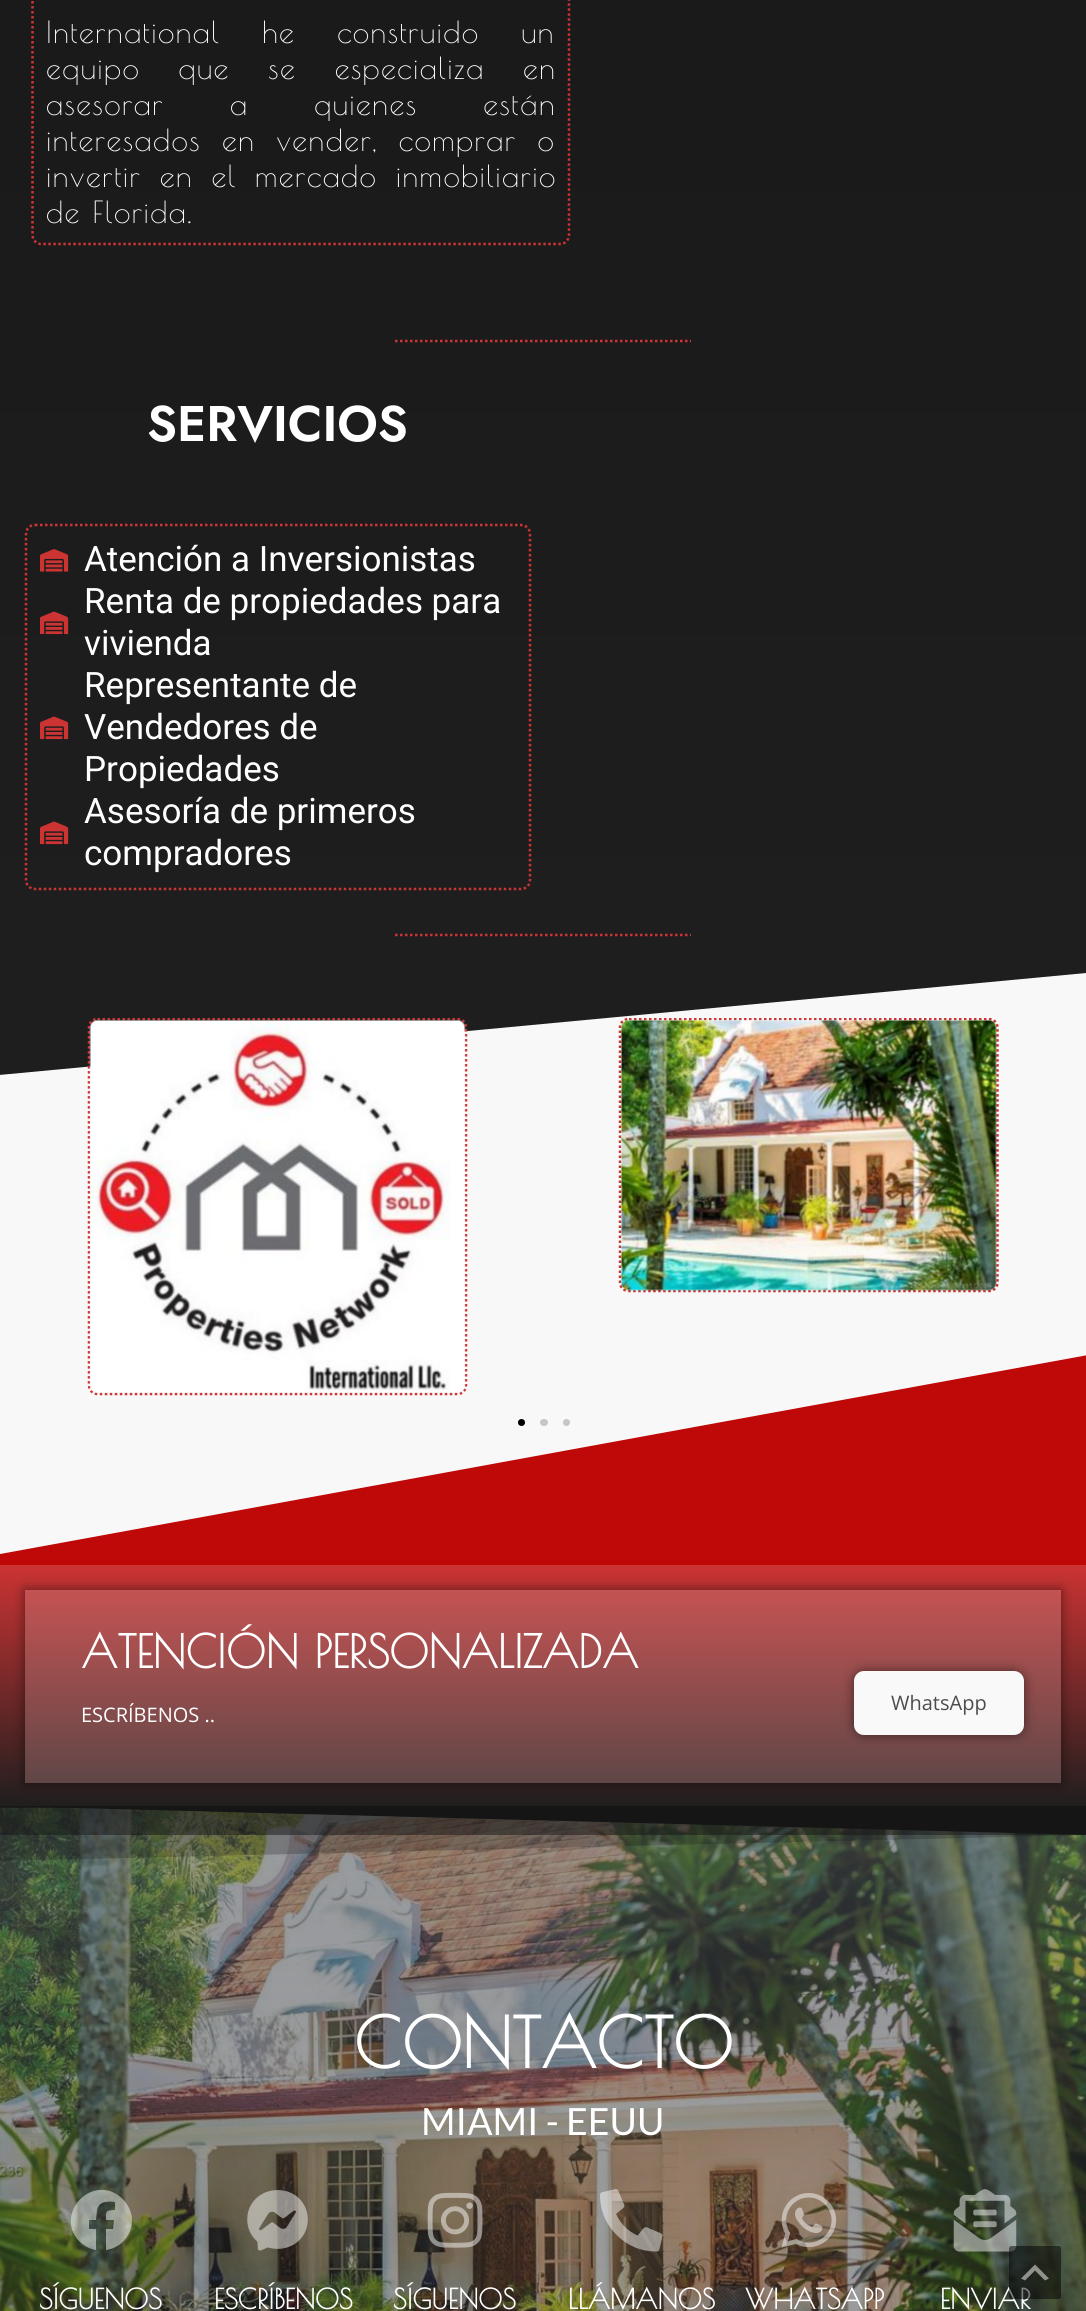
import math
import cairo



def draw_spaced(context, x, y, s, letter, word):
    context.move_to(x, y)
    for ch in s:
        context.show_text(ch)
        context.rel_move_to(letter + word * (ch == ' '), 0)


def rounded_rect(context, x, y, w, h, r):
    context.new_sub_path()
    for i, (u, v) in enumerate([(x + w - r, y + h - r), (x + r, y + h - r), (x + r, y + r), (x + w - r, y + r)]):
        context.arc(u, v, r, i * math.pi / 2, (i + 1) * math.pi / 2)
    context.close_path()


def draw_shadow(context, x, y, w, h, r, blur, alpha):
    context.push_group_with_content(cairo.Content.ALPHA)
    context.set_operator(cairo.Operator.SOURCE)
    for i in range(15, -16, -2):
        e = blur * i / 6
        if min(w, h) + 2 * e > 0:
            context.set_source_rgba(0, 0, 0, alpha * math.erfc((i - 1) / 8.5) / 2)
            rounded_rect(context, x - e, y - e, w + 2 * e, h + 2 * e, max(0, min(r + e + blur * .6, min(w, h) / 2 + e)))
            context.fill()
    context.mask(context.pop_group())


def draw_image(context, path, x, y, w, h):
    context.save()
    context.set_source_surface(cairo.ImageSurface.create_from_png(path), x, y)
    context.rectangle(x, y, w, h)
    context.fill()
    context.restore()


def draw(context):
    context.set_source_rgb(1, 1, 1)
    context.paint()
    gradient = cairo.LinearGradient(543, -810, 543, 968)
    gradient.add_color_stop_rgba(0, 22 / 255, 22 / 255, 22 / 255, 1)
    gradient.add_color_stop_rgba(1, 30 / 255, 30 / 255, 30 / 255, 1)
    context.set_source(gradient)
    context.rectangle(0, 0, 1086, 966)
    context.fill()
    context.new_path()
    context.move_to(41, -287.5)
    context.line_to(560, -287.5)
    context.curve_to(565, -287.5, 569, -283.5, 569, -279)
    context.line_to(569, 235)
    context.curve_to(569, 240, 565, 244, 560, 244)
    context.line_to(41, 244)
    context.curve_to(36.5, 244, 32.5, 240, 32.5, 235)
    context.line_to(32.5, -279)
    context.curve_to(32.5, -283.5, 36.5, -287.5, 41, -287.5)
    context.close_path()
    context.set_source_rgb(204 / 255, 51 / 255, 51 / 255)
    context.set_line_width(2.5)
    context.set_dash([2.5, 2.5])
    context.stroke()
    context.new_path()
    context.move_to(395, 341)
    context.line_to(691, 341)
    context.stroke()
    context.new_path()
    context.move_to(35, 525)
    context.line_to(521, 525)
    context.curve_to(526, 525, 530, 529, 530, 534)
    context.line_to(530, 880)
    context.curve_to(530, 885, 526, 889, 521, 889)
    context.line_to(35, 889)
    context.curve_to(30, 889, 26, 885, 26, 880)
    context.line_to(26, 534)
    context.curve_to(26, 529, 30, 525, 35, 525)
    context.close_path()
    context.stroke()
    draw_image(context, "images/1.png", 40, 549, 29, 23)
    draw_image(context, "images/2.png", 40, 611, 29, 24)
    draw_image(context, "images/3.png", 40, 716, 29, 24)
    draw_image(context, "images/3.png", 40, 821, 29, 24)
    context.new_path()
    context.move_to(395, 935)
    context.line_to(691, 935)
    context.stroke()
    context.set_source_rgb(248 / 255, 248 / 255, 248 / 255)
    context.rectangle(0, 973, 1086, 581)
    context.fill()
    context.set_source_rgb(30 / 255, 30 / 255, 30 / 255)
    context.new_path()
    context.move_to(1086, 973)
    context.line_to(1086, 966)
    context.line_to(-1, 966)
    context.line_to(-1, 1075)
    context.close_path()
    context.fill()
    context.set_source_rgb(191 / 255, 9 / 255, 9 / 255)
    context.new_path()
    context.move_to(0, 1554)
    context.line_to(0, 1567)
    context.line_to(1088, 1567)
    context.line_to(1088, 1355)
    context.close_path()
    context.fill()
    context.save()
    context.rectangle(13, 1018, 1061, 422)
    context.clip()
    context.new_path()
    context.move_to(97.5, 1019)
    context.line_to(457.5, 1019)
    context.curve_to(462.5, 1019, 466, 1022.5, 466, 1027.5)
    context.line_to(466, 1385)
    context.curve_to(466, 1390, 462.5, 1394, 457.5, 1394)
    context.line_to(97.5, 1394)
    context.curve_to(92.5, 1394, 89, 1390, 89, 1385)
    context.line_to(89, 1027.5)
    context.curve_to(89, 1022.5, 92.5, 1019, 97.5, 1019)
    context.close_path()
    context.set_source_rgb(204 / 255, 51 / 255, 51 / 255)
    context.stroke()
    context.restore()
    draw_image(context, "images/4.png", 89, 1019, 377, 375)
    context.save()
    context.rectangle(13, 1018, 1061, 422)
    context.clip()
    context.new_path()
    context.move_to(629, 1019)
    context.line_to(989, 1019)
    context.curve_to(993.5, 1019, 997.5, 1022.5, 997.5, 1027.5)
    context.line_to(997.5, 1282.5)
    context.curve_to(997.5, 1287.5, 993.5, 1291, 989, 1291)
    context.line_to(629, 1291)
    context.curve_to(624, 1291, 620, 1287.5, 620, 1282.5)
    context.line_to(620, 1027.5)
    context.curve_to(620, 1022.5, 624, 1019, 629, 1019)
    context.close_path()
    context.set_source_rgb(204 / 255, 51 / 255, 51 / 255)
    context.stroke()
    context.restore()
    draw_image(context, "images/5.png", 620, 1019, 377, 272)
    context.set_source_rgb(0, 0, 0)
    context.arc(521.5, 1422.5, 3.5, 0, 2 * math.pi)
    context.fill()
    context.set_source_rgb(198 / 255, 198 / 255, 198 / 255)
    rounded_rect(context, 540, 1419, 8, 7, 3.5)
    context.fill()
    context.arc(566.5, 1422.5, 3.5, 0, 2 * math.pi)
    context.fill()
    gradient = cairo.LinearGradient(543, 1565, 543, 1808)
    gradient.add_color_stop_rgba(0, 204 / 255, 51 / 255, 51 / 255, 1)
    gradient.add_color_stop_rgba(1, 30 / 255, 30 / 255, 30 / 255, 1)
    context.set_source(gradient)
    context.rectangle(0, 1565, 1086, 243)
    context.fill()
    context.save()
    context.set_fill_rule(cairo.FillRule.EVEN_ODD)
    context.new_path()
    context.move_to(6, 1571)
    context.line_to(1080, 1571)
    context.line_to(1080, 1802)
    context.line_to(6, 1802)
    context.close_path()
    context.move_to(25, 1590)
    context.line_to(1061, 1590)
    context.line_to(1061, 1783)
    context.line_to(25, 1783)
    context.close_path()
    context.clip()
    context.set_source_rgb(0, 0, 0)
    draw_shadow(context, 25, 1590, 1036, 193, 0, 6, 0.5)
    context.restore()
    context.set_source_rgba(226 / 255, 175 / 255, 175 / 255, 0.27)
    context.rectangle(25, 1590, 1036, 193)
    context.fill()
    context.set_source_rgb(0, 0, 0)
    draw_shadow(context, 854, 1671, 170, 64, 10, 6, 0.5)
    context.set_source_rgb(249 / 255, 249 / 255, 249 / 255)
    rounded_rect(context, 854, 1671, 170, 64, 10)
    context.fill()
    draw_image(context, "images/6.png", 0, 1807, 1086, 504)
    context.set_source_rgb(22 / 255, 22 / 255, 22 / 255)
    context.new_path()
    context.move_to(0, 1806)
    context.line_to(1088, 1806)
    context.line_to(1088, 1835)
    context.close_path()
    context.fill()
    context.set_source_rgba(22 / 255, 22 / 255, 22 / 255, 0.5)
    context.rectangle(0, 1806, 1085, 29)
    context.fill()
    context.set_source_rgba(22 / 255, 22 / 255, 22 / 255, 0.25)
    context.new_path()
    context.move_to(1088, 1806)
    context.line_to(0, 1806)
    context.line_to(0, 1861)
    context.line_to(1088, 1835)
    context.close_path()
    context.fill()
    context.set_source_rgba(1, 1, 1, 0.48)
    context.new_path()
    context.move_to(132, 2220)
    context.curve_to(132, 2235, 121, 2248, 106, 2250)
    context.line_to(106, 2229)
    context.line_to(113, 2229)
    context.line_to(114, 2220)
    context.line_to(106, 2220)
    context.curve_to(106, 2212, 105, 2210, 115, 2210)
    context.line_to(115, 2202)
    context.curve_to(108, 2201, 99, 2201, 97, 2210)
    context.line_to(96, 2220)
    context.line_to(89, 2220)
    context.line_to(89, 2229)
    context.line_to(96, 2229)
    context.line_to(96, 2250)
    context.curve_to(89, 2249, 83, 2245, 78, 2240)
    context.curve_to(56, 2214, 89, 2176, 118, 2195)
    context.curve_to(126, 2201, 132, 2210, 132, 2220)
    context.close_path()
    context.fill()
    draw_image(context, "images/7.png", 247, 2190, 61, 61)
    draw_image(context, "images/8.png", 427, 2192, 56, 56)
    draw_image(context, "images/9.png", 600, 2189, 63, 63)
    draw_image(context, "images/10.png", 781, 2193, 56, 55)
    draw_image(context, "images/11.png", 953, 2189, 64, 63)
    context.select_font_face("Poiret One")
    context.set_font_size(30)
    context.set_source_rgb(1, 1, 1)
    draw_spaced(context, 46, 43, "International he construido un", 1.4, 30)
    draw_spaced(context, 46, 79, "equipo que se especializa en", 1.4, 26.5)
    draw_spaced(context, 46, 115, "asesorar a quienes están", 1.4, 54)
    draw_spaced(context, 46, 151, "interesados en vender, comprar o", 1.4, 9)
    draw_spaced(context, 46, 187, "invertir en el mercado inmobiliario", 1.4, 6.5)
    draw_spaced(context, 46, 223, "de Florida.", 1.4, 0)
    context.select_font_face("Jost SemiBold")
    context.set_font_size(50)
    context.move_to(147, 441)
    context.show_text("SERVICIOS")
    context.select_font_face("Roboto")
    context.set_font_size(35)
    context.move_to(84, 571)
    context.show_text("Atención a Inversionistas")
    context.move_to(84, 613)
    context.show_text("Renta de propiedades para")
    context.move_to(84, 655)
    context.show_text("vivienda")
    context.move_to(84, 697)
    context.show_text("Representante de")
    context.move_to(84, 739)
    context.show_text("Vendedores de")
    context.move_to(84, 781)
    context.show_text("Propiedades")
    context.move_to(84, 823)
    context.show_text("Asesoría de primeros")
    context.move_to(84, 865)
    context.show_text("compradores")
    context.select_font_face("Poiret One", cairo.FontSlant.NORMAL, cairo.FontWeight.BOLD)
    context.set_font_size(45)
    context.move_to(81, 1668)
    context.show_text("ATENCIÓN PERSONALIZADA")
    context.select_font_face("Open Sans")
    context.set_font_size(20)
    context.move_to(81, 1722)
    context.show_text("ESCRÍBENOS ..")
    context.set_source_rgb(77 / 255, 77 / 255, 77 / 255)
    context.move_to(891, 1710)
    context.show_text("WhatsApp")
    context.select_font_face("Poiret One", cairo.FontSlant.NORMAL, cairo.FontWeight.BOLD)
    context.set_font_size(68.75)
    context.set_source_rgb(1, 1, 1)
    context.move_to(354, 2068)
    context.show_text("CONTACTO")
    context.select_font_face("Lato")
    context.set_font_size(37.5)
    context.move_to(421, 2135)
    context.show_text("MIAMI - EEUU")
    context.select_font_face("Poiret One", cairo.FontSlant.NORMAL, cairo.FontWeight.BOLD)
    context.set_font_size(27.5)
    context.move_to(39, 2309)
    context.show_text("SÍGUENOS")
    context.move_to(214, 2309)
    context.show_text("ESCRÍBENOS")
    context.move_to(393, 2309)
    context.show_text("SÍGUENOS")
    context.move_to(568, 2309)
    context.show_text("LLÁMANOS")
    context.move_to(745, 2309)
    context.show_text("WHATSAPP")
    context.move_to(940, 2309)
    context.show_text("ENVIAR")
    context.set_source_rgba(0, 0, 0, 0.5)
    rounded_rect(context, 1009, 2246, 52, 53, 2.5)
    context.fill()
    context.set_source_rgba(1, 1, 1, 0.5)
    context.new_path()
    context.move_to(1045, 2280.5)
    context.line_to(1035, 2270.5)
    context.line_to(1025, 2280.5)
    context.line_to(1021, 2278.5)
    context.line_to(1035, 2264.5)
    context.line_to(1049, 2278.5)
    context.close_path()
    context.fill()


surface = cairo.ImageSurface(cairo.Format.RGB24, 1086, 2311)
context = cairo.Context(surface)
options = cairo.FontOptions()
options.set_hint_metrics(cairo.HintMetrics.OFF)
options.set_hint_style(cairo.HintStyle.NONE)
context.set_font_options(options)
context.set_miter_limit(4)
draw(context)
surface.write_to_png("out.png")
